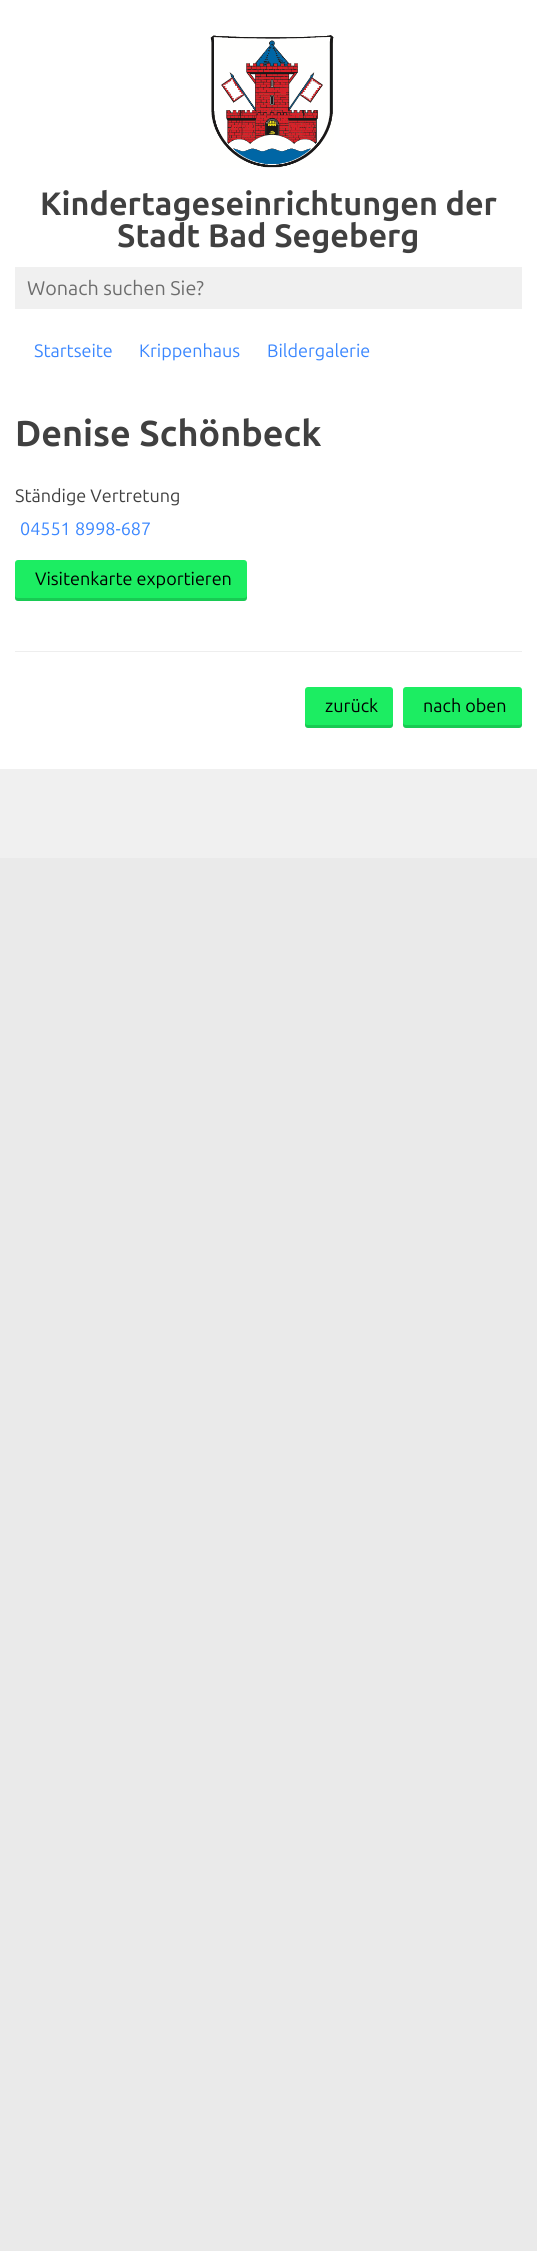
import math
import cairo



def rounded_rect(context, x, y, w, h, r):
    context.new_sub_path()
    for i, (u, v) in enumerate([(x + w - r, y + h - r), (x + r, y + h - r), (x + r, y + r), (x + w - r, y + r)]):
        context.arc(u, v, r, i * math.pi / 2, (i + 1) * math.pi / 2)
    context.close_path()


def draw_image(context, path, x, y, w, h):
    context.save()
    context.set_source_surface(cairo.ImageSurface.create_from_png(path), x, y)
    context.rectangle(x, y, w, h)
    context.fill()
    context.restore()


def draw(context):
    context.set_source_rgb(234 / 255, 234 / 255, 234 / 255)
    context.paint()
    context.set_source_rgb(1, 1, 1)
    context.rectangle(0, 0, 537, 769)
    context.fill()
    draw_image(context, "images/1.png", 210, 35, 124, 133)
    context.set_source_rgb(240 / 255, 240 / 255, 240 / 255)
    context.rectangle(15, 267, 507, 42)
    context.fill()
    context.set_source_rgb(28 / 255, 237 / 255, 98 / 255)
    rounded_rect(context, 15, 560, 232, 41, 3)
    context.fill()
    context.set_source_rgba(0, 0, 0, 0.15)
    context.new_path()
    context.move_to(15, 595)
    context.line_to(15, 598)
    context.curve_to(15, 600, 16, 601, 18, 601)
    context.line_to(244, 601)
    context.curve_to(246, 601, 247, 600, 247, 598)
    context.line_to(247, 595)
    context.curve_to(247, 597, 246, 598, 244, 598)
    context.line_to(18, 598)
    context.curve_to(16, 598, 15, 597, 15, 595)
    context.close_path()
    context.fill()
    context.set_source_rgb(238 / 255, 238 / 255, 238 / 255)
    context.rectangle(15, 651, 507, 1)
    context.fill()
    context.set_source_rgb(28 / 255, 237 / 255, 98 / 255)
    rounded_rect(context, 305, 687, 88, 41, 3)
    context.fill()
    context.set_source_rgba(0, 0, 0, 0.15)
    context.new_path()
    context.move_to(305, 722)
    context.line_to(305, 725)
    context.curve_to(305, 727, 306, 728, 308, 728)
    context.line_to(390, 728)
    context.curve_to(392, 728, 393, 727, 393, 725)
    context.line_to(393, 722)
    context.curve_to(393, 724, 392, 725, 390, 725)
    context.line_to(308, 725)
    context.curve_to(306, 725, 305, 724, 305, 722)
    context.close_path()
    context.fill()
    context.set_source_rgb(28 / 255, 237 / 255, 98 / 255)
    rounded_rect(context, 403, 687, 119, 41, 3)
    context.fill()
    context.set_source_rgba(0, 0, 0, 0.15)
    context.new_path()
    context.move_to(403, 722)
    context.line_to(403, 725)
    context.curve_to(403, 727, 404, 728, 406, 728)
    context.line_to(519, 728)
    context.curve_to(521, 728, 522, 727, 522, 725)
    context.line_to(522, 722)
    context.curve_to(522, 724, 521, 725, 519, 725)
    context.line_to(406, 725)
    context.curve_to(404, 725, 403, 724, 403, 722)
    context.close_path()
    context.fill()
    context.set_source_rgb(240 / 255, 240 / 255, 240 / 255)
    context.rectangle(0, 769, 537, 89)
    context.fill()
    context.select_font_face("Ubuntu", cairo.FontSlant.NORMAL, cairo.FontWeight.BOLD)
    context.set_font_size(32.4)
    context.set_source_rgb(64 / 255, 64 / 255, 64 / 255)
    context.move_to(40, 215)
    context.show_text("Kindertageseinrichtungen der")
    context.move_to(117, 247)
    context.show_text("Stadt Bad Segeberg")
    context.select_font_face("Ubuntu")
    context.set_font_size(19.75)
    context.set_source_rgb(109 / 255, 109 / 255, 109 / 255)
    context.move_to(27, 295)
    context.show_text("Wonach suchen Sie?")
    context.set_font_size(18)
    context.set_source_rgb(59 / 255, 135 / 255, 1)
    context.move_to(34, 357)
    context.show_text("Startseite")
    context.move_to(139, 357)
    context.show_text("Krippenhaus")
    context.move_to(267, 357)
    context.show_text("Bildergalerie")
    context.select_font_face("Ubuntu", cairo.FontSlant.NORMAL, cairo.FontWeight.BOLD)
    context.set_font_size(36)
    context.set_source_rgb(64 / 255, 64 / 255, 64 / 255)
    context.move_to(15, 446)
    context.show_text("Denise Schönbeck")
    context.select_font_face("Ubuntu")
    context.set_font_size(18)
    context.move_to(15, 502)
    context.show_text("Ständige Vertretung")
    context.set_source_rgb(59 / 255, 135 / 255, 1)
    context.move_to(20, 535)
    context.show_text("04551 8998-687")
    context.set_source_rgb(0, 0, 0)
    context.move_to(35, 585)
    context.show_text("Visitenkarte exportieren")
    context.move_to(325, 712)
    context.show_text("zurück")
    context.move_to(423, 712)
    context.show_text("nach oben")


surface = cairo.ImageSurface(cairo.Format.RGB24, 537, 2251)
context = cairo.Context(surface)
options = cairo.FontOptions()
options.set_hint_metrics(cairo.HintMetrics.OFF)
options.set_hint_style(cairo.HintStyle.NONE)
context.set_font_options(options)
context.set_miter_limit(4)
draw(context)
surface.write_to_png("out.png")
